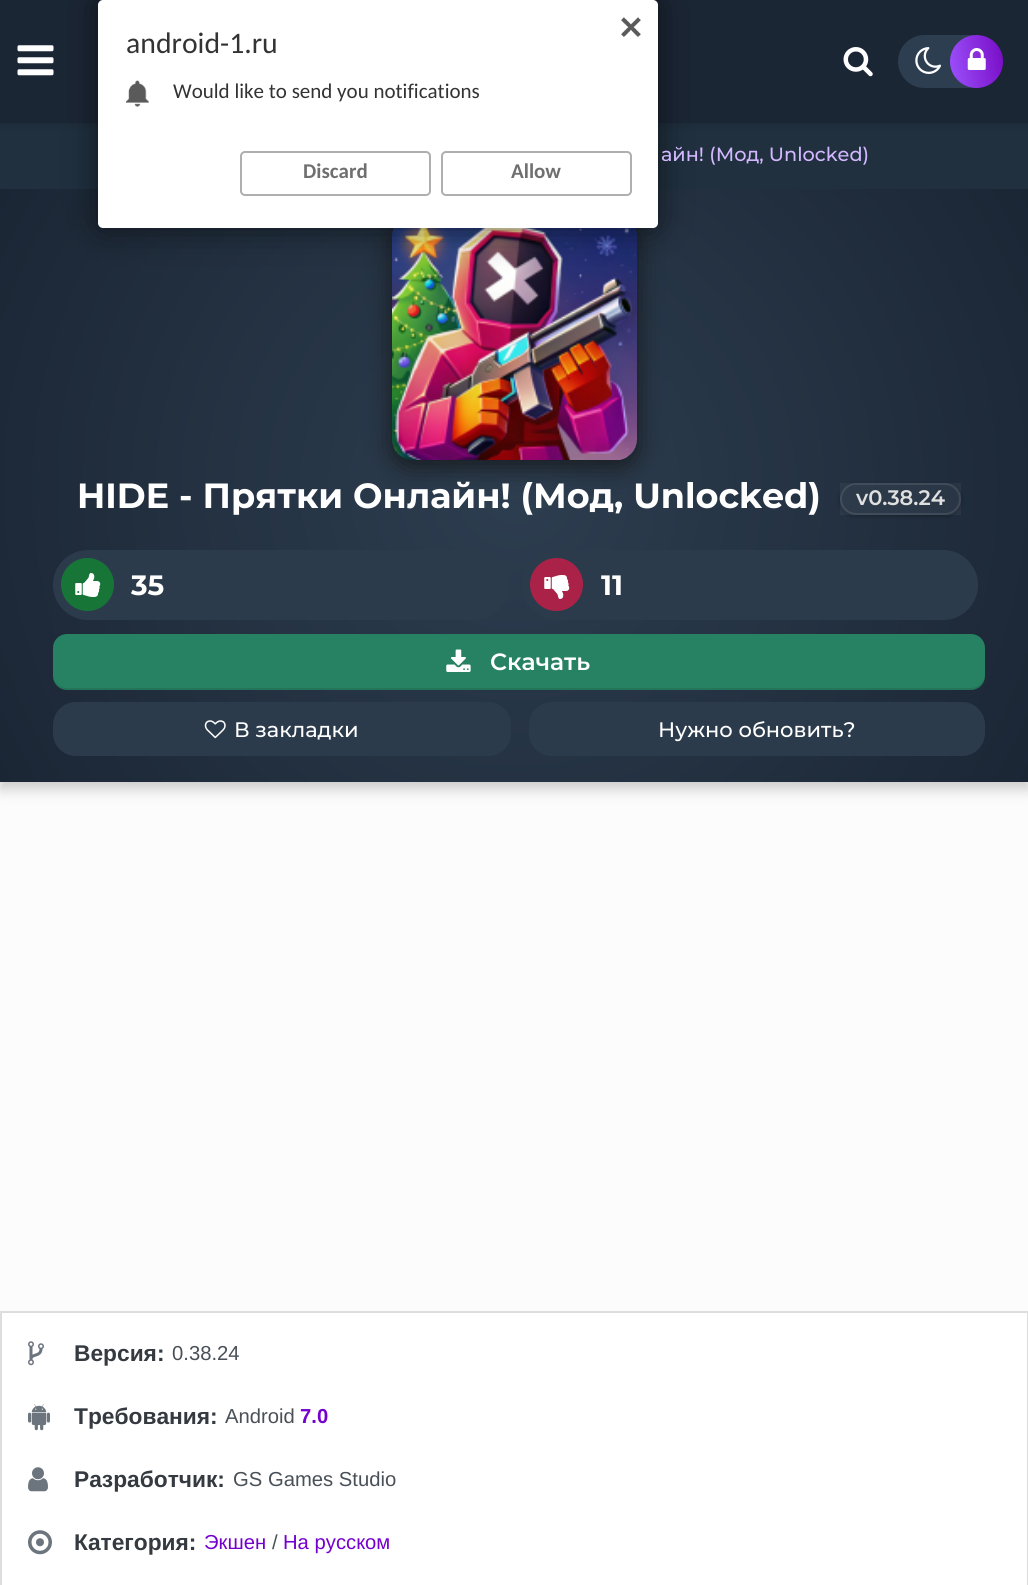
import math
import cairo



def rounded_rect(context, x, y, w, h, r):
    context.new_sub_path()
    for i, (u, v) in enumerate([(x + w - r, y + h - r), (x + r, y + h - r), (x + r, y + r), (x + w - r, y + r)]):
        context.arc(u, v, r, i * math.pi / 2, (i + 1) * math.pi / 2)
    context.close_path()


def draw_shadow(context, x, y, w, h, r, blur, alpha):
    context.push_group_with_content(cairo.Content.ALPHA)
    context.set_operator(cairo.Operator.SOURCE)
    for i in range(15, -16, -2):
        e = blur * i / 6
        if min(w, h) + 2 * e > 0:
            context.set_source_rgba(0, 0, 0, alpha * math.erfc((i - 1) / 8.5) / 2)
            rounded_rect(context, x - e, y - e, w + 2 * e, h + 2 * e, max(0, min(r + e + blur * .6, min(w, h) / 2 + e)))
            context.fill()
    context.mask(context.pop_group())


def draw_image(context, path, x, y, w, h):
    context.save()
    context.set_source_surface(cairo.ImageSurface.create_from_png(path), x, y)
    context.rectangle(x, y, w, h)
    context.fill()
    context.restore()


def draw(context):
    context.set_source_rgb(32 / 255, 48 / 255, 63 / 255)
    context.paint()
    context.set_source_rgb(0, 0, 0)
    draw_shadow(context, 0, 0, 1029, 123, 0, 4.5, 0.2)
    context.set_source_rgb(27 / 255, 38 / 255, 53 / 255)
    context.rectangle(0, 0, 1028, 123)
    context.fill()
    draw_image(context, "images/3.png", 17, 45, 37, 31)
    context.set_source_rgb(252 / 255, 252 / 255, 253 / 255)
    context.rectangle(0, 782, 1028, 529)
    context.fill()
    context.save()
    context.rectangle(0, 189, 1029, 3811)
    context.clip()
    context.set_source_rgb(0, 0, 0)
    draw_shadow(context, 0, 196, 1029, 593, 0, 7, 0.2)
    context.restore()
    gradient = cairo.RadialGradient(515, 486, 0, 515, 486, 594)
    gradient.add_color_stop_rgba(0, 45 / 255, 62 / 255, 80 / 255, 1)
    gradient.add_color_stop_rgba(1, 27 / 255, 38 / 255, 53 / 255, 1)
    context.set_source(gradient)
    context.rectangle(0, 189, 1028, 593)
    context.fill()
    context.set_source_rgb(22 / 255, 25 / 255, 28 / 255)
    draw_shadow(context, 392, 222, 245, 245, 18, 13, 1)
    draw_image(context, "images/7.png", 392, 228, 245, 232)
    context.set_source_rgb(0, 0, 0)
    draw_shadow(context, 98, 0, 560, 228, 5, 17.5, 0.54)
    context.set_source_rgb(1, 1, 1)
    rounded_rect(context, 98, 0, 560, 228, 5)
    context.fill()
    draw_image(context, "images/1.png", 621, 17, 20, 20)
    draw_image(context, "images/2.png", 126, 80, 23, 27)
    rounded_rect(context, 241, 152, 189, 43, 4)
    context.set_source_rgb(175 / 255, 175 / 255, 175 / 255)
    context.stroke()
    rounded_rect(context, 442, 152, 189, 43, 4)
    context.stroke()
    draw_image(context, "images/4.png", 843, 47, 30, 30)
    context.set_source_rgb(44 / 255, 62 / 255, 80 / 255)
    rounded_rect(context, 898, 35, 96, 53, 26.5)
    context.fill()
    draw_image(context, "images/5.png", 915, 47, 27, 27)
    gradient = cairo.LinearGradient(1006, 57, 947, 66)
    gradient.add_color_stop_rgba(0, 120 / 255, 12 / 255, 197 / 255, 1)
    gradient.add_color_stop_rgba(0.96, 154 / 255, 78 / 255, 249 / 255, 1)
    context.set_source(gradient)
    context.arc(976.5, 61.5, 26.5, 0, 2 * math.pi)
    context.fill()
    draw_image(context, "images/6.png", 967, 48, 19, 22)
    context.save()
    context.set_fill_rule(cairo.FillRule.EVEN_ODD)
    context.new_path()
    context.move_to(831, 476)
    context.line_to(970, 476)
    context.line_to(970, 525)
    context.line_to(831, 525)
    context.close_path()
    context.move_to(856, 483)
    context.line_to(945, 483)
    context.curve_to(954, 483, 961, 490, 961, 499)
    context.curve_to(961, 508, 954, 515, 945, 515)
    context.line_to(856, 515)
    context.curve_to(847, 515, 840, 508, 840, 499)
    context.curve_to(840, 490, 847, 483, 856, 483)
    context.close_path()
    context.clip()
    context.set_source_rgb(0, 0, 0)
    draw_shadow(context, 840, 485, 121, 31, 15.5, 2.5, 0.3)
    context.restore()
    context.set_source_rgba(1, 1, 1, 0.05)
    context.rectangle(840, 483, 121, 32)
    context.fill()
    rounded_rect(context, 841, 484, 119, 30, 15)
    context.set_source_rgba(1, 1, 1, 0.1)
    context.stroke()
    context.set_source_rgb(44 / 255, 59 / 255, 75 / 255)
    rounded_rect(context, 53, 550, 456, 70, 35)
    context.fill()
    context.set_source_rgb(23 / 255, 117 / 255, 56 / 255)
    context.arc(87.5, 584.5, 26.5, 0, 2 * math.pi)
    context.fill()
    draw_image(context, "images/8.png", 75, 573, 26, 24)
    context.set_source_rgb(44 / 255, 59 / 255, 75 / 255)
    rounded_rect(context, 522, 550, 456, 70, 35)
    context.fill()
    context.set_source_rgb(171 / 255, 34 / 255, 72 / 255)
    context.arc(556.5, 584.5, 26.5, 0, 2 * math.pi)
    context.fill()
    draw_image(context, "images/9.png", 544, 575, 26, 24)
    context.set_source_rgb(39 / 255, 129 / 255, 99 / 255)
    rounded_rect(context, 53, 634, 932, 56, 14)
    context.fill()
    context.set_source_rgba(0, 0, 0, 0.1)
    context.new_path()
    context.move_to(54, 680)
    context.curve_to(55, 686, 61, 690, 67, 690)
    context.line_to(971, 690)
    context.curve_to(979, 690, 985, 684, 985, 676)
    context.line_to(985, 674)
    context.curve_to(985, 681, 979, 688, 971, 688)
    context.line_to(66, 688)
    context.curve_to(61, 688, 56, 684, 54, 680)
    context.close_path()
    context.fill()
    draw_image(context, "images/10.png", 446, 649, 25, 23)
    context.set_source_rgb(44 / 255, 59 / 255, 75 / 255)
    rounded_rect(context, 53, 702, 458, 54, 23)
    context.fill()
    draw_image(context, "images/11.png", 204, 720, 22, 19)
    rounded_rect(context, 529, 702, 456, 54, 23)
    context.fill()
    context.set_source_rgb(1, 1, 1)
    context.rectangle(1, 1312, 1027, 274)
    context.fill_preserve()
    context.set_source_rgb(221 / 255, 221 / 255, 221 / 255)
    context.stroke()
    draw_image(context, "images/12.png", 28, 1341, 16, 25)
    draw_image(context, "images/13.png", 28, 1404, 22, 27)
    draw_image(context, "images/14.png", 28, 1467, 20, 25)
    draw_image(context, "images/15.png", 28, 1530, 24, 25)
    context.select_font_face("Carlito")
    context.set_font_size(29.75)
    context.set_source_rgb(51 / 255, 51 / 255, 51 / 255)
    context.move_to(126, 53)
    context.show_text("android-1.ru")
    context.set_font_size(21)
    context.move_to(173, 98)
    context.show_text("Would like to send you notifications")
    context.select_font_face("Carlito", cairo.FontSlant.NORMAL, cairo.FontWeight.BOLD)
    context.set_source_rgb(111 / 255, 111 / 255, 111 / 255)
    context.move_to(303, 178)
    context.show_text("Discard")
    context.move_to(511, 178)
    context.show_text("Allow")
    context.select_font_face("Montserrat Medium")
    context.set_font_size(19.25)
    context.set_source_rgb(211 / 255, 183 / 255, 1)
    context.move_to(661, 161)
    context.show_text("айн! (Мод, Unlocked)")
    context.select_font_face("Montserrat", cairo.FontSlant.NORMAL, cairo.FontWeight.BOLD)
    context.set_font_size(35)
    context.set_source_rgb(1, 1, 1)
    context.move_to(77, 508)
    context.show_text("HIDE - Прятки Онлайн! (Мод, Unlocked)")
    context.select_font_face("Montserrat SemiBold")
    context.set_font_size(21)
    context.set_source_rgb(224 / 255, 224 / 255, 224 / 255)
    context.move_to(856, 505)
    context.show_text("v0.38.24")
    context.select_font_face("Montserrat", cairo.FontSlant.NORMAL, cairo.FontWeight.BOLD)
    context.set_font_size(28)
    context.set_source_rgb(1, 1, 1)
    context.move_to(131, 595)
    context.show_text("35")
    context.move_to(601, 595)
    context.show_text("11")
    context.select_font_face("Montserrat SemiBold")
    context.set_font_size(23.5)
    context.move_to(490, 670)
    context.show_text("Скачать")
    context.select_font_face("Montserrat Medium")
    context.set_font_size(21)
    context.move_to(234, 737)
    context.show_text("В закладки")
    context.move_to(658, 737)
    context.show_text("Нужно обновить?")
    context.select_font_face("Liberation Sans", cairo.FontSlant.NORMAL, cairo.FontWeight.BOLD)
    context.set_font_size(22.75)
    context.set_source_rgb(52 / 255, 58 / 255, 64 / 255)
    context.move_to(74, 1361)
    context.show_text("Версия:")
    context.select_font_face("Liberation Sans")
    context.set_font_size(20.25)
    context.set_source_rgb(73 / 255, 80 / 255, 87 / 255)
    context.move_to(172, 1360)
    context.show_text("0.38.24")
    context.select_font_face("Liberation Sans", cairo.FontSlant.NORMAL, cairo.FontWeight.BOLD)
    context.set_font_size(22.75)
    context.set_source_rgb(52 / 255, 58 / 255, 64 / 255)
    context.move_to(74, 1424)
    context.show_text("Требования:")
    context.select_font_face("Liberation Sans")
    context.set_font_size(20.25)
    context.set_source_rgb(73 / 255, 80 / 255, 87 / 255)
    context.move_to(225, 1423)
    context.show_text("Android")
    context.select_font_face("Liberation Sans", cairo.FontSlant.NORMAL, cairo.FontWeight.BOLD)
    context.set_source_rgb(118 / 255, 0, 205 / 255)
    context.move_to(300, 1423)
    context.show_text("7.0")
    context.set_font_size(22.75)
    context.set_source_rgb(52 / 255, 58 / 255, 64 / 255)
    context.move_to(74, 1487)
    context.show_text("Разработчик:")
    context.select_font_face("Liberation Sans")
    context.set_font_size(20.25)
    context.set_source_rgb(73 / 255, 80 / 255, 87 / 255)
    context.move_to(233, 1486)
    context.show_text("GS Games Studio")
    context.select_font_face("Liberation Sans", cairo.FontSlant.NORMAL, cairo.FontWeight.BOLD)
    context.set_font_size(22.75)
    context.set_source_rgb(52 / 255, 58 / 255, 64 / 255)
    context.move_to(74, 1550)
    context.show_text("Категория:")
    context.select_font_face("Liberation Sans")
    context.set_font_size(20.25)
    context.set_source_rgb(118 / 255, 0, 205 / 255)
    context.move_to(204, 1549)
    context.show_text("Экшен")
    context.set_source_rgb(73 / 255, 80 / 255, 87 / 255)
    context.move_to(272, 1549)
    context.show_text("/")
    context.set_source_rgb(118 / 255, 0, 205 / 255)
    context.move_to(283, 1549)
    context.show_text("На русском")


surface = cairo.ImageSurface(cairo.Format.RGB24, 1028, 1585)
context = cairo.Context(surface)
options = cairo.FontOptions()
options.set_hint_metrics(cairo.HintMetrics.OFF)
options.set_hint_style(cairo.HintStyle.NONE)
context.set_font_options(options)
context.set_miter_limit(4)
draw(context)
surface.write_to_png("out.png")
